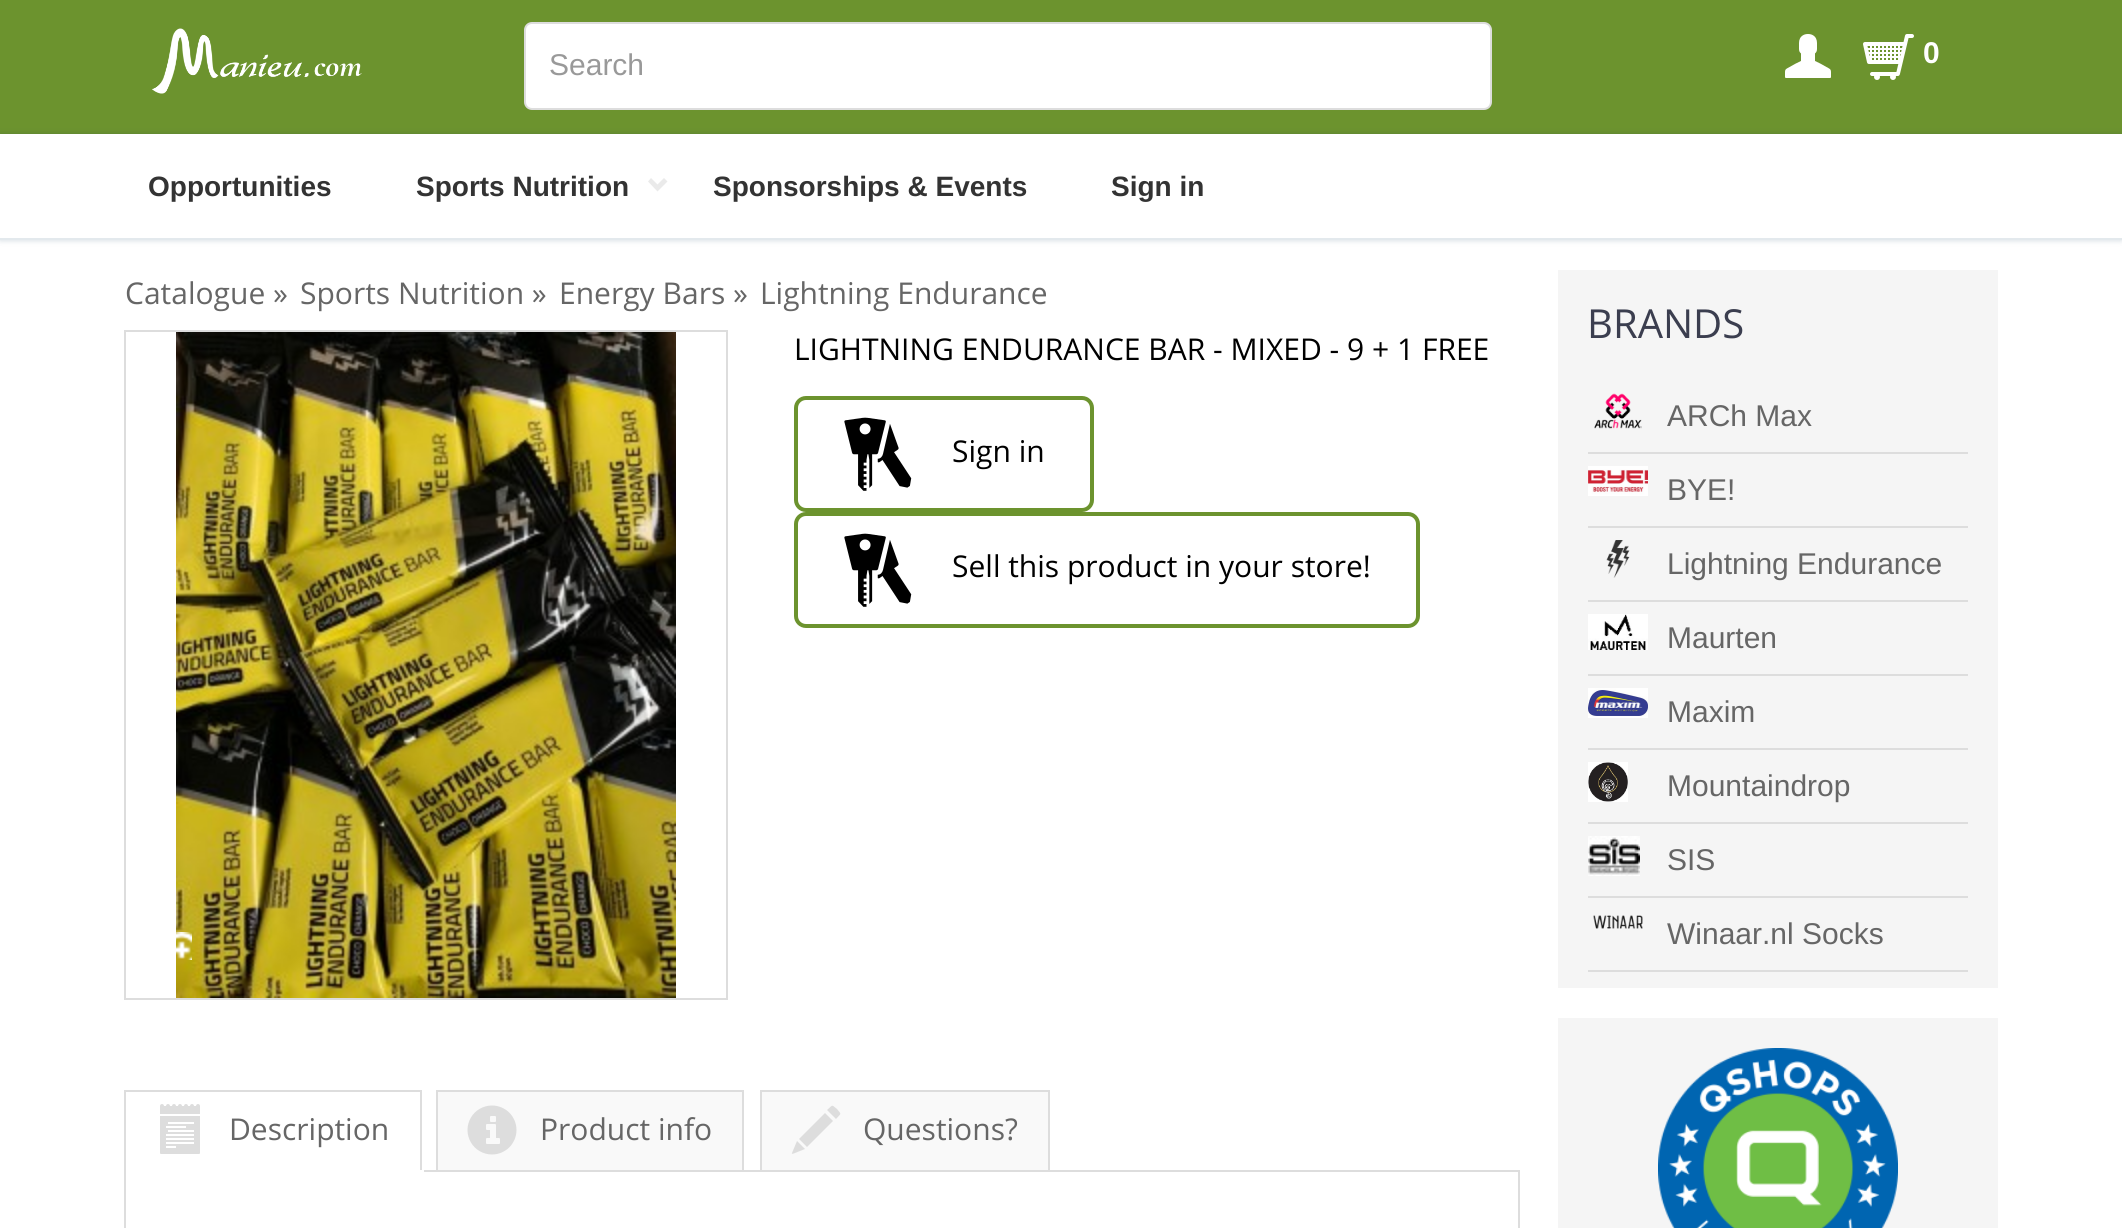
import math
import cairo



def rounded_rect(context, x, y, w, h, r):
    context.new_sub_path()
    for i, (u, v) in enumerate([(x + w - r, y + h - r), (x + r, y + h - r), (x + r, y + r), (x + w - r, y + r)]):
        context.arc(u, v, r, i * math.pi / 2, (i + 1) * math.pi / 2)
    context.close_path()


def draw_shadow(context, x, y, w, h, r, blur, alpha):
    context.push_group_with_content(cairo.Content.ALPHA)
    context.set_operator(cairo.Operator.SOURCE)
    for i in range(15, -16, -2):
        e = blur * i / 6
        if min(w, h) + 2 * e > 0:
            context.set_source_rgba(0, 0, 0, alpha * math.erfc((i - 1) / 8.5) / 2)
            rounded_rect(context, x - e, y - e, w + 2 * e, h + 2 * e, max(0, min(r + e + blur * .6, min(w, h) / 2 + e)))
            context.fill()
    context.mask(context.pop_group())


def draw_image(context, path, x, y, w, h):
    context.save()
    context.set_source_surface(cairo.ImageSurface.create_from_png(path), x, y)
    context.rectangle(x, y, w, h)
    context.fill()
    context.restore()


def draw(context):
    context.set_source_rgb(1, 1, 1)
    context.paint()
    context.set_source_rgb(108 / 255, 147 / 255, 46 / 255)
    context.rectangle(0, 0, 2122, 134)
    context.fill()
    draw_image(context, "images/1.png", 152, 28, 210, 66)
    context.set_source_rgb(1, 1, 1)
    rounded_rect(context, 525, 23, 966, 86, 7)
    context.fill_preserve()
    context.set_source_rgb(221 / 255, 221 / 255, 221 / 255)
    context.stroke()
    draw_image(context, "images/2.png", 1785, 34, 46, 44)
    draw_image(context, "images/3.png", 1863, 34, 51, 46)
    context.set_source_rgb(0, 49 / 255, 82 / 255)
    draw_shadow(context, 0, 134, 2122, 106, 0, 3, 0.2)
    context.set_source_rgb(1, 1, 1)
    context.rectangle(0, 134, 2122, 104)
    context.fill()
    context.set_source_rgb(227 / 255, 233 / 255, 237 / 255)
    context.rectangle(0, 238, 2122, 2)
    context.fill()
    context.set_source_rgb(234 / 255, 234 / 255, 234 / 255)
    context.new_path()
    context.move_to(651, 178)
    context.line_to(657.5, 184.5)
    context.line_to(664, 178)
    context.line_to(667.5, 181.5)
    context.line_to(657.5, 191.5)
    context.line_to(648, 181.5)
    context.close_path()
    context.fill()
    context.rectangle(125, 331, 602, 668)
    context.set_source_rgb(221 / 255, 221 / 255, 221 / 255)
    context.stroke()
    draw_image(context, "images/4.png", 176, 332, 500, 666)
    draw_image(context, "images/5.png", 176, 932, 16, 28)
    rounded_rect(context, 796, 398, 296, 112, 10)
    context.set_source_rgb(108 / 255, 147 / 255, 46 / 255)
    context.set_line_width(4)
    context.stroke()
    draw_image(context, "images/6.png", 844, 417, 68, 74)
    rounded_rect(context, 796, 514, 622, 112, 10)
    context.stroke()
    draw_image(context, "images/6.png", 844, 533, 68, 74)
    context.rectangle(125, 1171, 1394, 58)
    context.set_source_rgb(221 / 255, 221 / 255, 221 / 255)
    context.set_line_width(2)
    context.stroke()
    context.set_source_rgb(1, 1, 1)
    context.new_path()
    context.move_to(126, 1170)
    context.line_to(126, 1174)
    context.line_to(424, 1174)
    context.line_to(424, 1094)
    context.line_to(422, 1094)
    context.line_to(422, 1170)
    context.close_path()
    context.fill()
    context.set_source_rgb(221 / 255, 221 / 255, 221 / 255)
    context.rectangle(124, 1090, 298, 2)
    context.fill()
    context.rectangle(420, 1090, 2, 80)
    context.fill()
    context.rectangle(124, 1090, 2, 80)
    context.fill()
    draw_image(context, "images/7.png", 160, 1104, 40, 50)
    context.set_source_rgb(249 / 255, 249 / 255, 249 / 255)
    context.rectangle(438, 1092, 304, 78)
    context.fill()
    context.set_source_rgb(221 / 255, 221 / 255, 221 / 255)
    context.rectangle(436, 1090, 308, 2)
    context.fill()
    context.rectangle(742, 1090, 2, 80)
    context.fill()
    context.rectangle(436, 1090, 2, 80)
    context.fill()
    draw_image(context, "images/8.png", 467, 1105, 50, 50)
    context.set_source_rgb(249 / 255, 249 / 255, 249 / 255)
    context.rectangle(762, 1092, 286, 78)
    context.fill()
    context.set_source_rgb(221 / 255, 221 / 255, 221 / 255)
    context.rectangle(760, 1090, 290, 2)
    context.fill()
    context.rectangle(1048, 1090, 2, 80)
    context.fill()
    context.rectangle(760, 1090, 2, 80)
    context.fill()
    context.new_path()
    context.move_to(792, 1153)
    context.line_to(797, 1141)
    context.line_to(805, 1149)
    context.curve_to(795, 1153, 791, 1155, 792, 1153)
    context.close_path()
    context.move_to(799, 1139)
    context.line_to(825, 1113)
    context.line_to(833, 1121)
    context.line_to(807, 1147)
    context.close_path()
    context.move_to(827, 1110)
    context.curve_to(833, 1105, 831, 1104, 837, 1109)
    context.curve_to(842, 1115, 841, 1113, 836, 1119)
    context.close_path()
    context.fill()
    context.set_source_rgb(245 / 255, 245 / 255, 245 / 255)
    context.rectangle(1558, 270, 440, 718)
    context.fill()
    context.set_source_rgb(221 / 255, 221 / 255, 221 / 255)
    context.rectangle(1588, 452, 380, 2)
    context.fill()
    draw_image(context, "images/9.png", 1594, 393, 48, 36)
    context.rectangle(1588, 526, 380, 2)
    context.fill()
    draw_image(context, "images/10.png", 1588, 466, 60, 30)
    context.rectangle(1588, 600, 380, 2)
    context.fill()
    draw_image(context, "images/11.png", 1606, 540, 24, 38)
    context.rectangle(1588, 674, 380, 2)
    context.fill()
    draw_image(context, "images/12.png", 1588, 614, 60, 36)
    context.rectangle(1588, 748, 380, 2)
    context.fill()
    draw_image(context, "images/13.png", 1588, 688, 60, 30)
    context.rectangle(1588, 822, 380, 2)
    context.fill()
    draw_image(context, "images/14.png", 1588, 762, 40, 40)
    context.rectangle(1588, 896, 380, 2)
    context.fill()
    draw_image(context, "images/15.png", 1588, 836, 52, 40)
    context.rectangle(1588, 970, 380, 2)
    context.fill()
    draw_image(context, "images/16.png", 1593, 915, 50, 14)
    context.set_source_rgb(245 / 255, 245 / 255, 245 / 255)
    context.rectangle(1558, 1018, 440, 210)
    context.fill()
    draw_image(context, "images/17.png", 1658, 1048, 240, 180)
    context.select_font_face("Liberation Sans")
    context.set_font_size(30)
    context.set_source_rgb(153 / 255, 153 / 255, 153 / 255)
    context.move_to(549, 75)
    context.show_text("Search")
    context.select_font_face("Liberation Sans", cairo.FontSlant.NORMAL, cairo.FontWeight.BOLD)
    context.set_source_rgb(1, 1, 1)
    context.move_to(1923, 63)
    context.show_text("0")
    context.set_font_size(28)
    context.set_source_rgb(51 / 255, 51 / 255, 51 / 255)
    context.move_to(148, 196)
    context.show_text("Opportunities")
    context.move_to(416, 196)
    context.show_text("Sports Nutrition")
    context.move_to(713, 196)
    context.show_text("Sponsorships & Events")
    context.move_to(1111, 196)
    context.show_text("Sign in")
    context.select_font_face("Open Sans")
    context.set_font_size(30)
    context.set_source_rgb(102 / 255, 102 / 255, 102 / 255)
    context.move_to(125, 304)
    context.show_text("Catalogue »")
    context.move_to(300, 304)
    context.show_text("Sports Nutrition »")
    context.move_to(559, 304)
    context.show_text("Energy Bars »")
    context.move_to(760, 304)
    context.show_text("Lightning Endurance")
    context.set_source_rgb(0, 0, 0)
    context.move_to(794, 360)
    context.show_text("LIGHTNING ENDURANCE BAR - MIXED - 9 + 1 FREE")
    context.move_to(952, 462)
    context.show_text("Sign in")
    context.move_to(952, 577)
    context.show_text("Sell this product in your store!")
    context.set_source_rgb(102 / 255, 102 / 255, 102 / 255)
    context.move_to(229, 1140)
    context.show_text("Description")
    context.move_to(540, 1140)
    context.show_text("Product info")
    context.move_to(863, 1140)
    context.show_text("Questions?")
    context.set_font_size(40)
    context.set_source_rgb(59 / 255, 62 / 255, 79 / 255)
    context.move_to(1587, 338)
    context.show_text("BRANDS")
    context.select_font_face("Liberation Sans")
    context.set_font_size(30)
    context.set_source_rgb(102 / 255, 102 / 255, 102 / 255)
    context.move_to(1667, 426)
    context.show_text("ARCh Max")
    context.move_to(1667, 500)
    context.show_text("BYE!")
    context.move_to(1667, 574)
    context.show_text("Lightning Endurance")
    context.move_to(1667, 648)
    context.show_text("Maurten")
    context.move_to(1667, 722)
    context.show_text("Maxim")
    context.move_to(1667, 796)
    context.show_text("Mountaindrop")
    context.move_to(1667, 870)
    context.show_text("SIS")
    context.move_to(1667, 944)
    context.show_text("Winaar.nl Socks")


surface = cairo.ImageSurface(cairo.Format.RGB24, 2122, 1228)
context = cairo.Context(surface)
options = cairo.FontOptions()
options.set_hint_metrics(cairo.HintMetrics.OFF)
options.set_hint_style(cairo.HintStyle.NONE)
context.set_font_options(options)
context.set_miter_limit(4)
draw(context)
surface.write_to_png("out.png")
